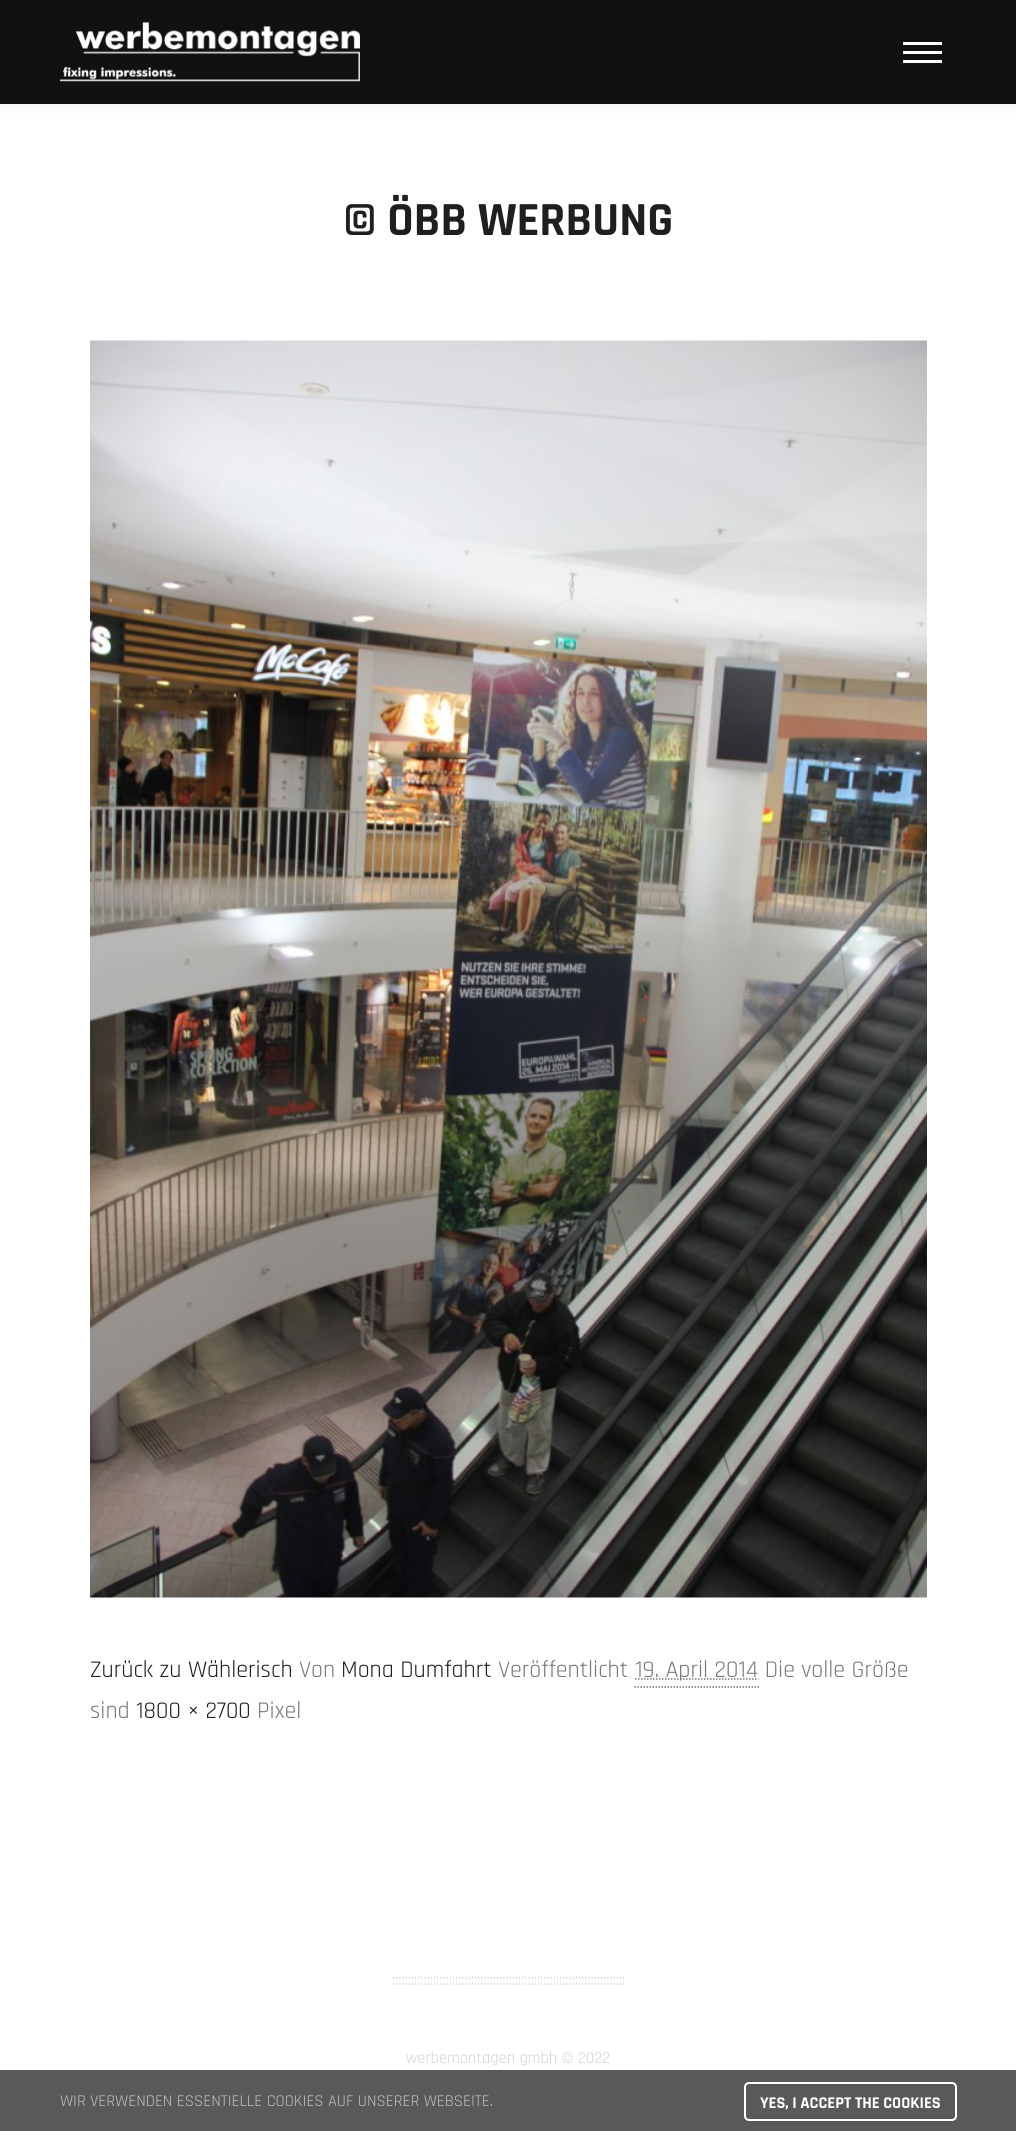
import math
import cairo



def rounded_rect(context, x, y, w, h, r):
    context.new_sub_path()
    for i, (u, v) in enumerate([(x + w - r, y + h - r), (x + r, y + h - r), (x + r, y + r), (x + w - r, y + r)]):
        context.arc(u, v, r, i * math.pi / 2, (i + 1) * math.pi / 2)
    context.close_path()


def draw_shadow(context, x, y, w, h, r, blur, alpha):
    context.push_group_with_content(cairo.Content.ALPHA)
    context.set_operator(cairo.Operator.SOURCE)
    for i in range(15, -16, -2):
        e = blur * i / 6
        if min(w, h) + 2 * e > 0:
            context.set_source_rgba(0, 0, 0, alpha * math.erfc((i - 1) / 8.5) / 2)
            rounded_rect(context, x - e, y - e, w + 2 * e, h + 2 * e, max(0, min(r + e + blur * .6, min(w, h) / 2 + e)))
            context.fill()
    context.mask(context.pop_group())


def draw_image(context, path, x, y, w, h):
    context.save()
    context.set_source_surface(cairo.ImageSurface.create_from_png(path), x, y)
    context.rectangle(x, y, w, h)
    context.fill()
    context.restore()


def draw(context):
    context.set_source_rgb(1, 1, 1)
    context.paint()
    context.set_source_rgb(0, 0, 0)
    draw_shadow(context, 0, 0, 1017, 104, 0, 9, 0.09)
    context.set_source_rgb(17 / 255, 17 / 255, 17 / 255)
    context.rectangle(0, 0, 1016, 104)
    context.fill()
    draw_image(context, "images/1.png", 60, 22, 300, 60)
    context.set_source_rgb(1, 1, 1)
    context.rectangle(903, 51, 39, 3)
    context.fill()
    context.rectangle(903, 42, 39, 3)
    context.fill()
    context.rectangle(903, 60, 39, 3)
    context.fill()
    draw_image(context, "images/2.png", 90, 340, 837, 1258)
    context.new_path()
    context.move_to(634.5, 1687)
    context.line_to(759, 1687)
    context.set_source_rgb(119 / 255, 119 / 255, 119 / 255)
    context.set_line_width(1.5)
    context.set_dash([1.5, 1.5])
    context.stroke()
    context.new_path()
    context.move_to(635, 1679)
    context.line_to(758.5, 1679)
    context.stroke()
    context.set_source_rgb(89 / 255, 89 / 255, 89 / 255)
    context.rectangle(0, 2070, 1016, 61)
    context.fill()
    rounded_rect(context, 745, 2083, 211, 37, 4)
    context.set_source_rgb(1, 1, 1)
    context.set_line_width(2)
    context.set_dash([])
    context.stroke()
    context.select_font_face("Rajdhani", cairo.FontSlant.NORMAL, cairo.FontWeight.BOLD)
    context.set_font_size(48)
    context.set_source_rgb(31 / 255, 31 / 255, 31 / 255)
    context.move_to(343, 235)
    context.show_text("© ÖBB WERBUNG")
    context.select_font_face("Rajdhani")
    context.set_font_size(24)
    context.move_to(90, 1677)
    context.show_text("Zurück zu Wählerisch")
    context.set_source_rgb(119 / 255, 119 / 255, 119 / 255)
    context.move_to(299, 1677)
    context.show_text("Von")
    context.set_source_rgb(31 / 255, 31 / 255, 31 / 255)
    context.move_to(341, 1677)
    context.show_text("Mona Dumfahrt")
    context.set_source_rgb(119 / 255, 119 / 255, 119 / 255)
    context.move_to(498, 1677)
    context.show_text("Veröffentlicht")
    context.move_to(635, 1677)
    context.show_text("19. April 2014 Die volle Größe")
    context.move_to(90, 1718)
    context.show_text("sind")
    context.set_source_rgb(31 / 255, 31 / 255, 31 / 255)
    context.move_to(136, 1718)
    context.show_text("1800 × 2700")
    context.set_source_rgb(119 / 255, 119 / 255, 119 / 255)
    context.move_to(257, 1718)
    context.show_text("Pixel")
    context.set_font_size(16.5)
    context.set_source_rgb(209 / 255, 209 / 255, 209 / 255)
    context.move_to(392, 1985)
    context.show_text("::::::::::::::::::::::::::::::::::::::::::::::::::::::::::::::::::::::::::")
    context.move_to(406, 2063)
    context.show_text("werbemontagen gmbh © 2022")
    context.set_source_rgb(193 / 255, 193 / 255, 193 / 255)
    context.move_to(60, 2106)
    context.show_text("WIR VERWENDEN ESSENTIELLE COOKIES AUF UNSERER WEBSEITE.")
    context.select_font_face("Rajdhani", cairo.FontSlant.NORMAL, cairo.FontWeight.BOLD)
    context.set_source_rgb(1, 1, 1)
    context.move_to(760, 2108)
    context.show_text("YES, I ACCEPT THE COOKIES")


surface = cairo.ImageSurface(cairo.Format.RGB24, 1016, 2131)
context = cairo.Context(surface)
options = cairo.FontOptions()
options.set_hint_metrics(cairo.HintMetrics.OFF)
options.set_hint_style(cairo.HintStyle.NONE)
context.set_font_options(options)
context.set_miter_limit(4)
draw(context)
surface.write_to_png("out.png")
